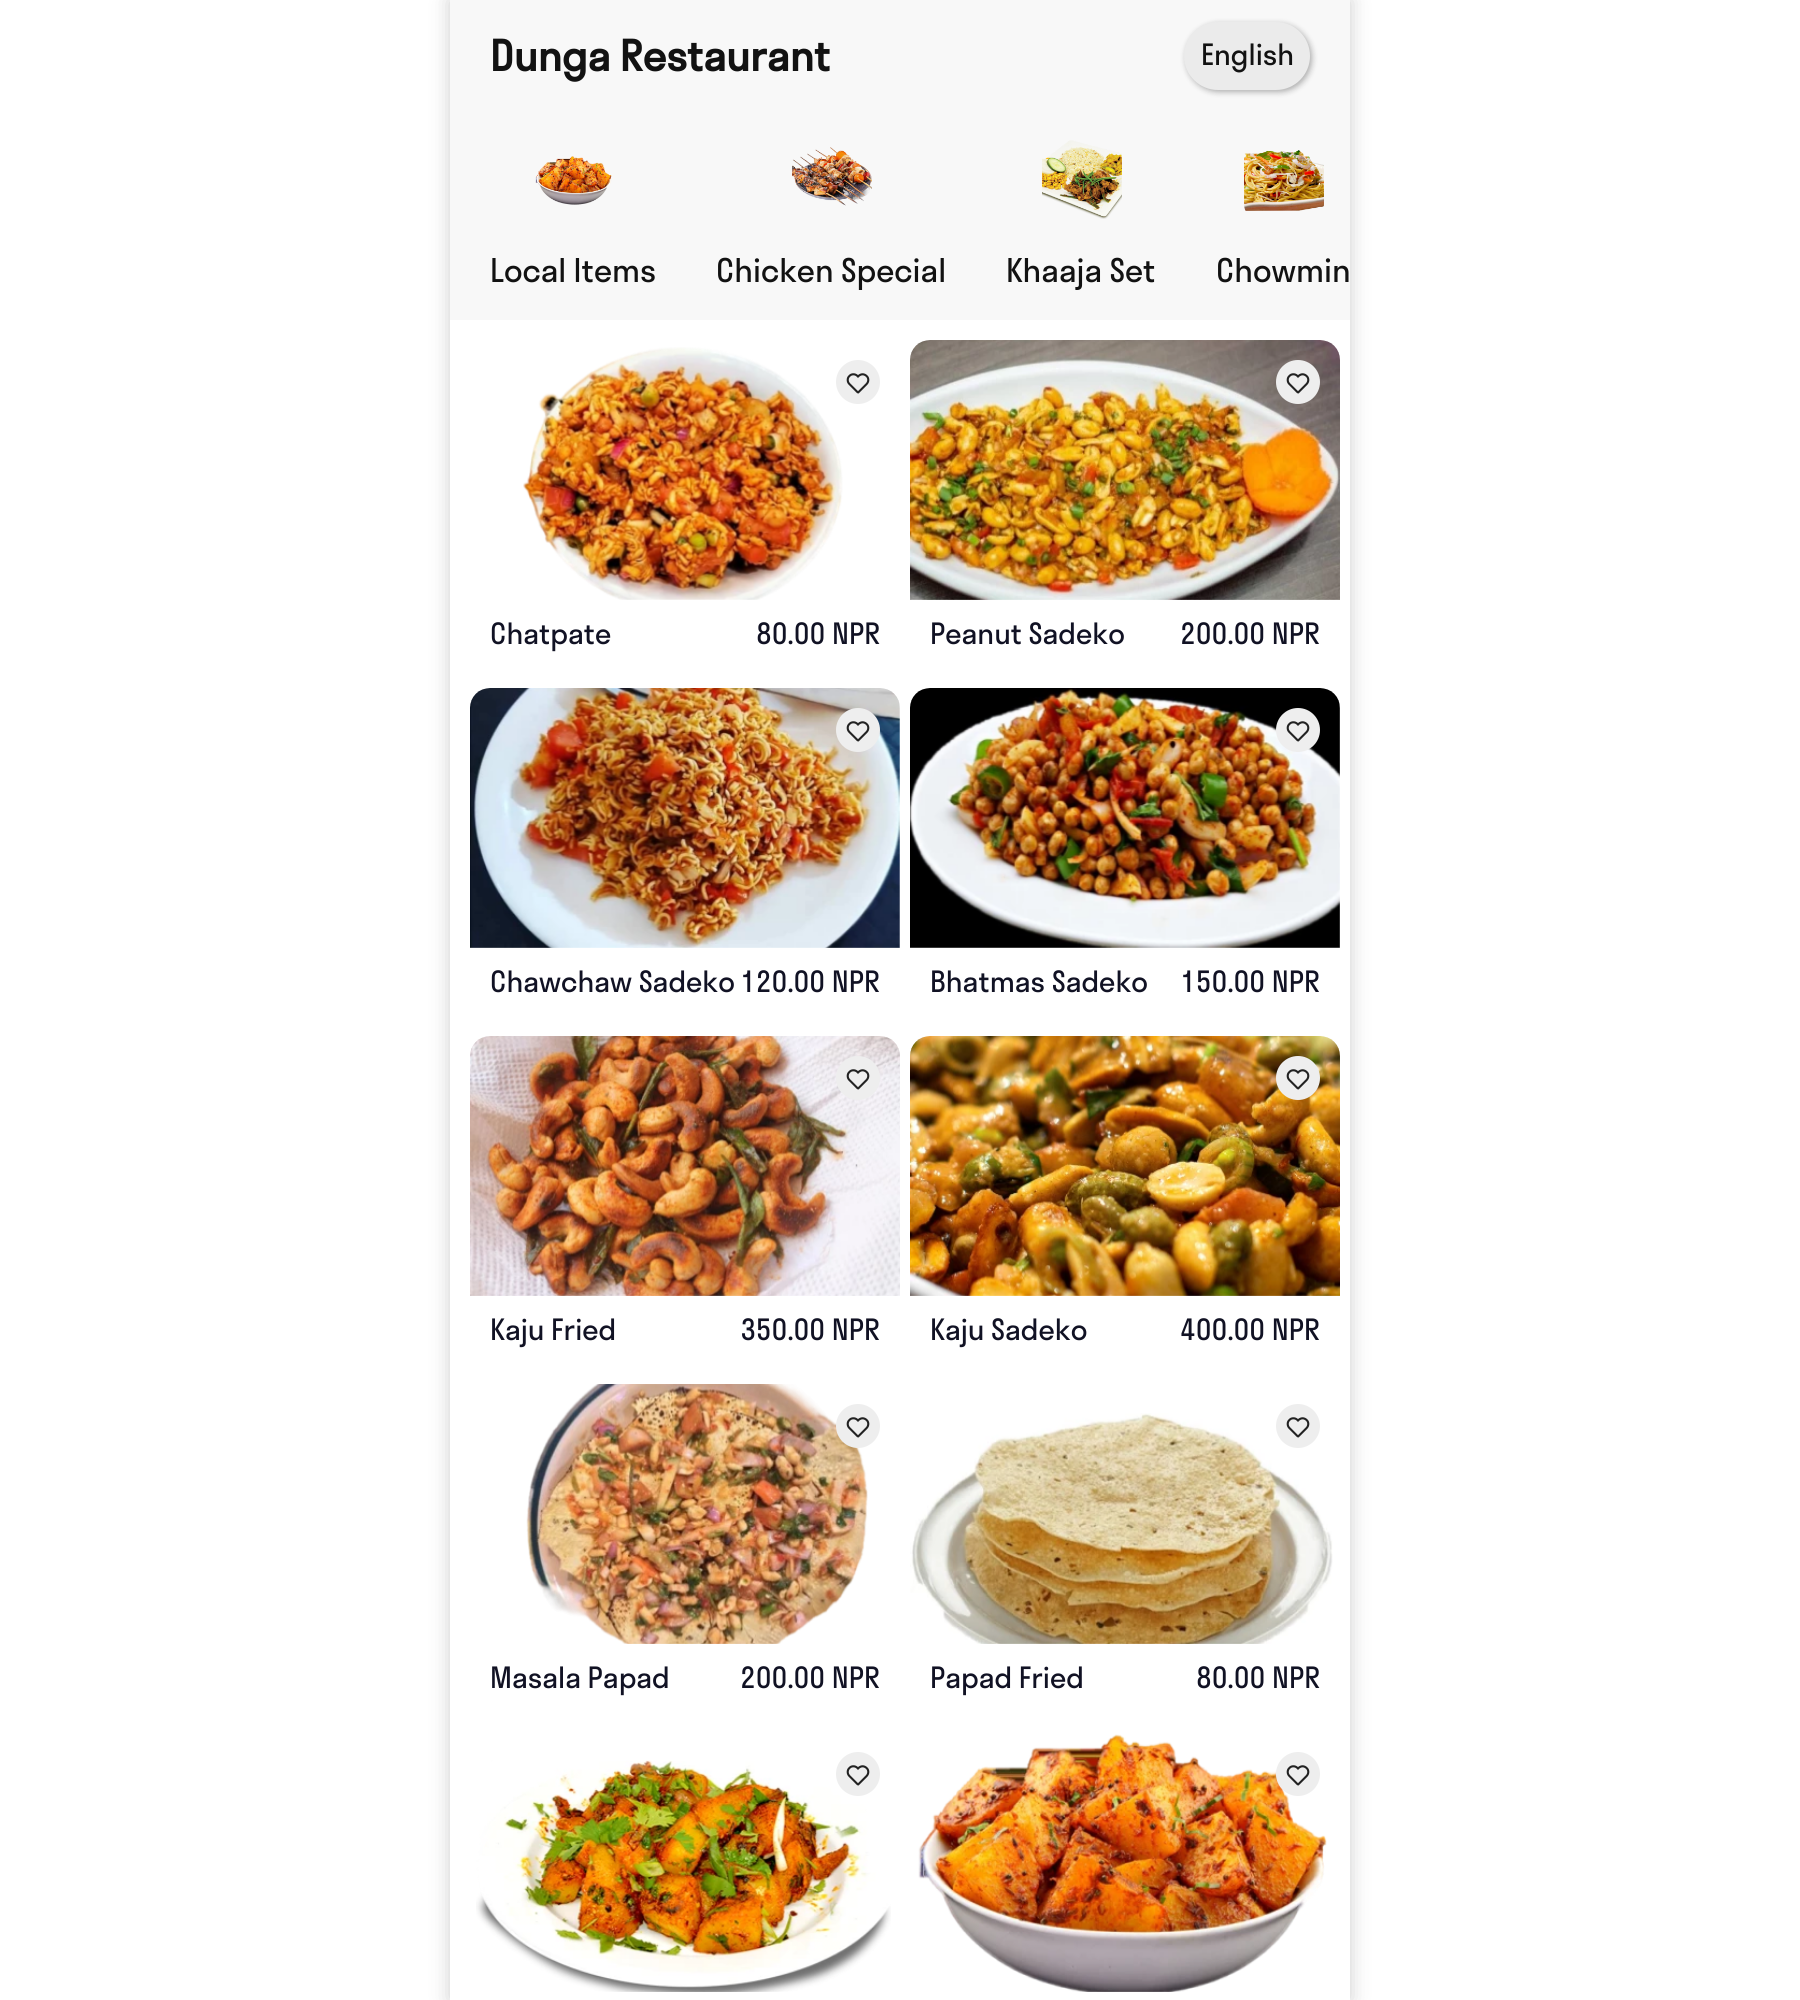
import math
import cairo



def rounded_rect(context, x, y, w, h, r):
    context.new_sub_path()
    for i, (u, v) in enumerate([(x + w - r, y + h - r), (x + r, y + h - r), (x + r, y + r), (x + w - r, y + r)]):
        context.arc(u, v, r, i * math.pi / 2, (i + 1) * math.pi / 2)
    context.close_path()


def draw_shadow(context, x, y, w, h, r, blur, alpha):
    context.push_group_with_content(cairo.Content.ALPHA)
    context.set_operator(cairo.Operator.SOURCE)
    for i in range(15, -16, -2):
        e = blur * i / 6
        if min(w, h) + 2 * e > 0:
            context.set_source_rgba(0, 0, 0, alpha * math.erfc((i - 1) / 8.5) / 2)
            rounded_rect(context, x - e, y - e, w + 2 * e, h + 2 * e, max(0, min(r + e + blur * .6, min(w, h) / 2 + e)))
            context.fill()
    context.mask(context.pop_group())


def draw_image(context, path, x, y, w, h):
    context.save()
    context.set_source_surface(cairo.ImageSurface.create_from_png(path), x, y)
    context.rectangle(x, y, w, h)
    context.fill()
    context.restore()


def draw(context):
    context.set_source_rgb(1, 1, 1)
    context.paint()
    context.set_source_rgb(0, 0, 0)
    draw_shadow(context, 450, 0, 900, 2000, 0, 10, 0.2)
    context.set_source_rgb(248 / 255, 248 / 255, 248 / 255)
    context.rectangle(450, 0, 900, 320)
    context.fill()
    context.set_source_rgb(0, 0, 0)
    draw_shadow(context, 1186, 24, 126, 68, 34, 3, 0.3)
    context.set_source_rgb(235 / 255, 235 / 255, 235 / 255)
    rounded_rect(context, 1184, 22, 126, 68, 34)
    context.fill()
    draw_image(context, "images/1.png", 535, 156, 77, 49)
    draw_image(context, "images/2.png", 792, 147, 80, 59)
    draw_image(context, "images/3.png", 1042, 140, 80, 79)
    draw_image(context, "images/4.png", 1244, 150, 80, 61)
    context.set_source_rgb(1, 1, 1)
    context.rectangle(450, 320, 900, 1680)
    context.fill()
    draw_image(context, "images/5.png", 523, 347, 320, 253)
    context.set_source_rgb(238 / 255, 238 / 255, 238 / 255)
    context.arc(858, 382, 22, 0, 2 * math.pi)
    context.fill()
    draw_image(context, "images/6.png", 846, 373, 24, 21)
    draw_image(context, "images/7.png", 910, 340, 430, 260)
    context.arc(1298, 382, 22, 0, 2 * math.pi)
    context.fill()
    draw_image(context, "images/6.png", 1286, 373, 24, 21)
    draw_image(context, "images/8.png", 470, 688, 430, 260)
    context.arc(858, 730, 22, 0, 2 * math.pi)
    context.fill()
    draw_image(context, "images/6.png", 846, 721, 24, 21)
    draw_image(context, "images/9.png", 910, 688, 430, 260)
    context.arc(1298, 730, 22, 0, 2 * math.pi)
    context.fill()
    draw_image(context, "images/6.png", 1286, 721, 24, 21)
    draw_image(context, "images/10.png", 470, 1036, 430, 260)
    context.arc(858, 1078, 22, 0, 2 * math.pi)
    context.fill()
    draw_image(context, "images/6.png", 846, 1069, 24, 21)
    draw_image(context, "images/11.png", 910, 1036, 430, 260)
    context.arc(1298, 1078, 22, 0, 2 * math.pi)
    context.fill()
    draw_image(context, "images/6.png", 1286, 1069, 24, 21)
    draw_image(context, "images/12.png", 526, 1384, 342, 260)
    context.arc(858, 1426, 22, 0, 2 * math.pi)
    context.fill()
    draw_image(context, "images/6.png", 846, 1417, 24, 21)
    draw_image(context, "images/13.png", 910, 1413, 423, 231)
    context.arc(1298, 1426, 22, 0, 2 * math.pi)
    context.fill()
    draw_image(context, "images/6.png", 1286, 1417, 24, 21)
    draw_image(context, "images/14.png", 476, 1760, 415, 232)
    context.arc(858, 1774, 22, 0, 2 * math.pi)
    context.fill()
    draw_image(context, "images/6.png", 846, 1765, 24, 21)
    draw_image(context, "images/15.png", 918, 1734, 409, 258)
    context.arc(1298, 1774, 22, 0, 2 * math.pi)
    context.fill()
    draw_image(context, "images/6.png", 1286, 1765, 24, 21)
    context.select_font_face("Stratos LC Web", cairo.FontSlant.NORMAL, cairo.FontWeight.BOLD)
    context.set_font_size(41.5)
    context.set_source_rgb(18 / 255, 18 / 255, 18 / 255)
    context.move_to(490, 71)
    context.show_text("Dunga Restaurant")
    context.select_font_face("Stratos LC Web")
    context.set_font_size(28.75)
    context.move_to(1201, 65)
    context.show_text("English")
    context.set_font_size(32)
    context.move_to(490, 282)
    context.show_text("Local Items")
    context.move_to(716, 282)
    context.show_text("Chicken Special")
    context.move_to(1006, 282)
    context.show_text("Khaaja Set")
    context.move_to(1216, 282)
    context.show_text("Chowmin")
    context.set_font_size(28.75)
    context.set_source_rgb(17 / 255, 18 / 255, 36 / 255)
    context.move_to(490, 644)
    context.show_text("Chatpate")
    context.move_to(756, 644)
    context.show_text("80.00 NPR")
    context.move_to(930, 644)
    context.show_text("Peanut Sadeko")
    context.move_to(1180, 644)
    context.show_text("200.00 NPR")
    context.move_to(490, 992)
    context.show_text("Chawchaw Sadeko")
    context.move_to(740, 992)
    context.show_text("120.00 NPR")
    context.move_to(930, 992)
    context.show_text("Bhatmas Sadeko")
    context.move_to(1180, 992)
    context.show_text("150.00 NPR")
    context.move_to(490, 1340)
    context.show_text("Kaju Fried")
    context.move_to(740, 1340)
    context.show_text("350.00 NPR")
    context.move_to(930, 1340)
    context.show_text("Kaju Sadeko")
    context.move_to(1180, 1340)
    context.show_text("400.00 NPR")
    context.move_to(490, 1688)
    context.show_text("Masala Papad")
    context.move_to(740, 1688)
    context.show_text("200.00 NPR")
    context.move_to(930, 1688)
    context.show_text("Papad Fried")
    context.move_to(1196, 1688)
    context.show_text("80.00 NPR")


surface = cairo.ImageSurface(cairo.Format.RGB24, 1800, 2000)
context = cairo.Context(surface)
options = cairo.FontOptions()
options.set_hint_metrics(cairo.HintMetrics.OFF)
options.set_hint_style(cairo.HintStyle.NONE)
context.set_font_options(options)
context.set_miter_limit(4)
draw(context)
surface.write_to_png("out.png")
